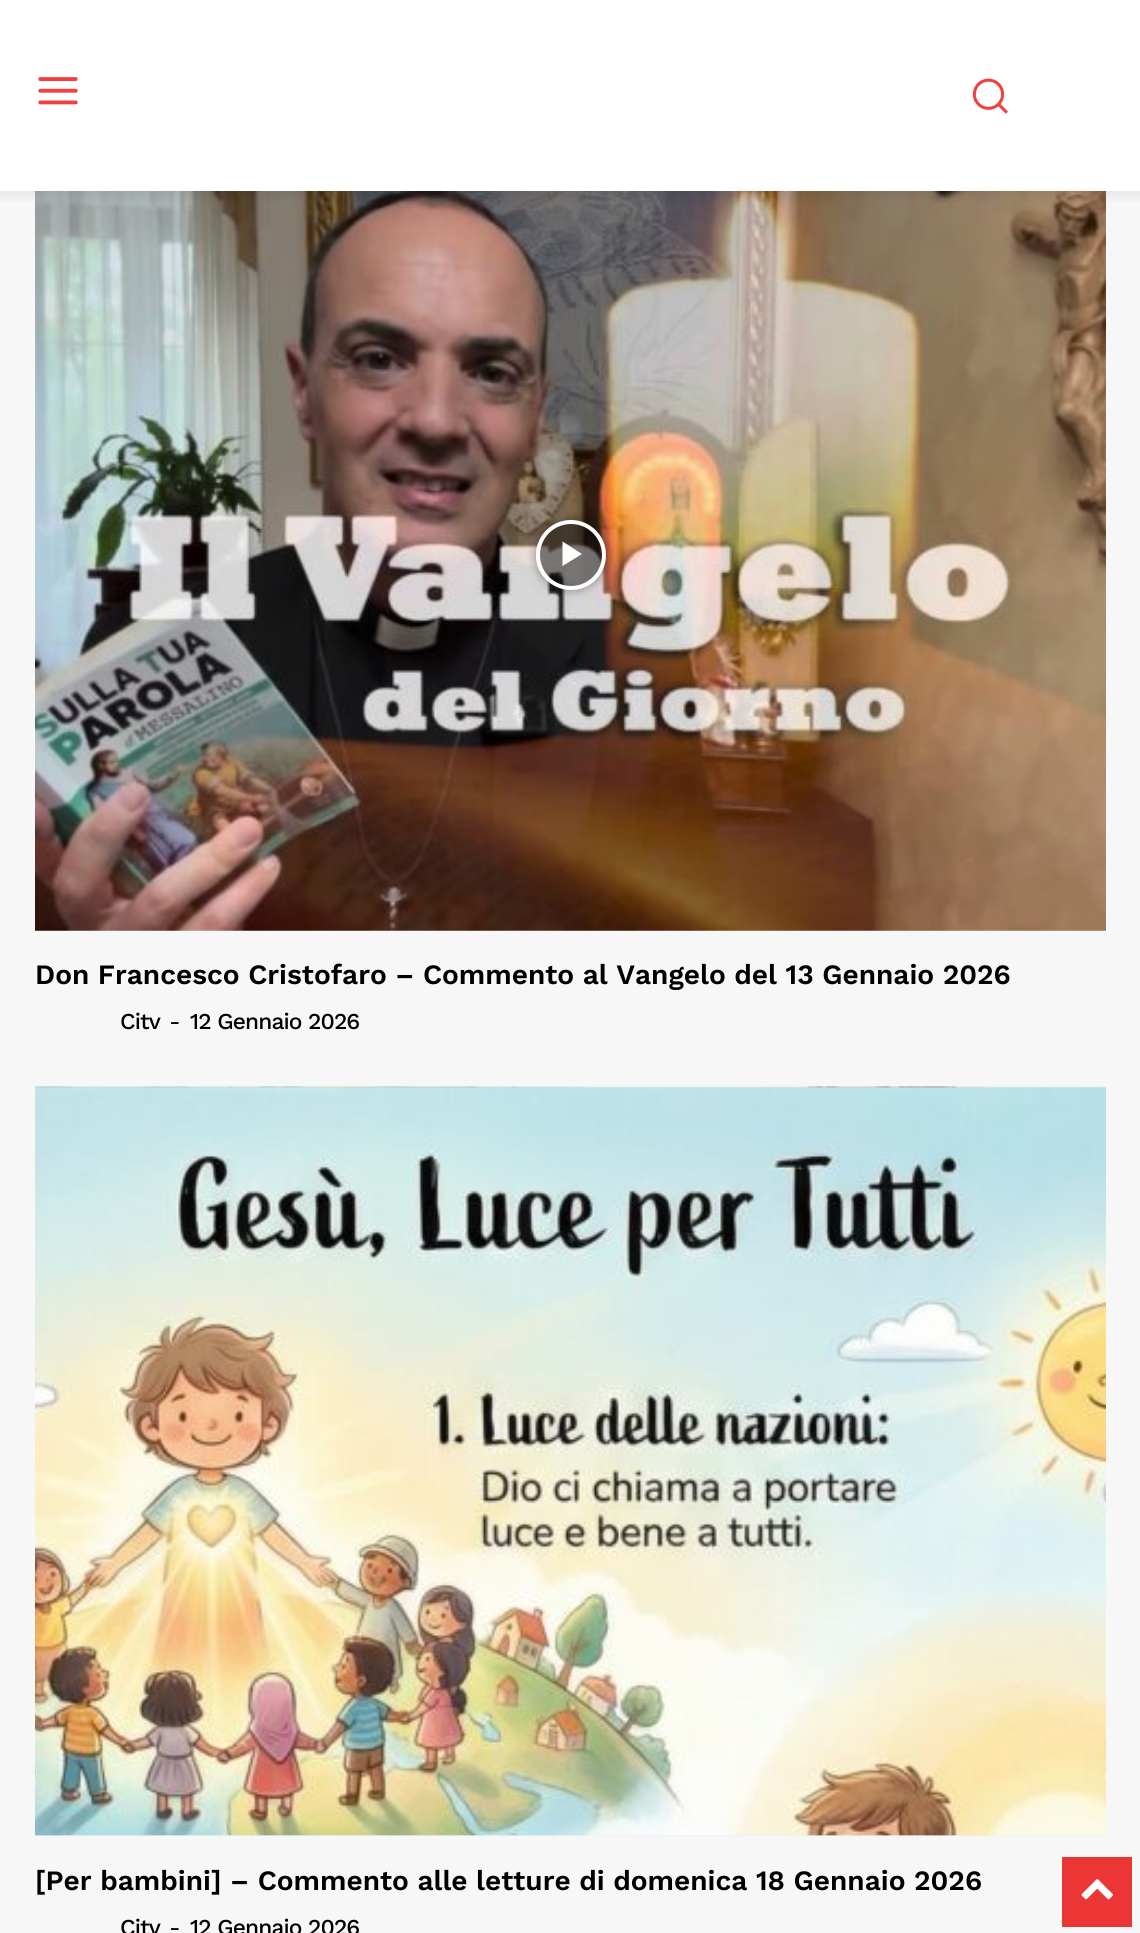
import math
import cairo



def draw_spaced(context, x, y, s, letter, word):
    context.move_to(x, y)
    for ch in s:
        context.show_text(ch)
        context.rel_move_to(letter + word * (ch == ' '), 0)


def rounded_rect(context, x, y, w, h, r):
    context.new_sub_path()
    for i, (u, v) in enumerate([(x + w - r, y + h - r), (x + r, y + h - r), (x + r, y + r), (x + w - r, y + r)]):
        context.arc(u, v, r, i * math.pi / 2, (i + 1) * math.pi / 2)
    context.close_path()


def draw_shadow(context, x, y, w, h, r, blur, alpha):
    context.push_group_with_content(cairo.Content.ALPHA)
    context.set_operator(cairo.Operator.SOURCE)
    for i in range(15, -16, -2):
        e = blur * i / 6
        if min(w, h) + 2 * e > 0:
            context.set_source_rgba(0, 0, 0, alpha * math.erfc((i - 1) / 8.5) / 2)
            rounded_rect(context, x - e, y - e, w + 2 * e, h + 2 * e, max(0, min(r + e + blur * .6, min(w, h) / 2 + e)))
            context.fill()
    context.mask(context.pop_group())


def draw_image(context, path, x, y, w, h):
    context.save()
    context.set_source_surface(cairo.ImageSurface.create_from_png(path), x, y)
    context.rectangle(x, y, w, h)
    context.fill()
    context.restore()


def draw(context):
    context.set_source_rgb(247 / 255, 247 / 255, 247 / 255)
    context.paint()
    context.set_source_rgb(1, 1, 1)
    context.rectangle(0, 0, 1140, 191)
    context.fill()
    draw_image(context, "images/1.png", 38, 77, 40, 28)
    draw_image(context, "images/2.png", 972, 78, 36, 36)
    draw_image(context, "images/3.png", 35, 191, 1071, 740)
    context.save()
    context.rectangle(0, 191, 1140, 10)
    context.clip()
    context.set_source_rgb(0, 0, 0)
    draw_shadow(context, 0, 4, 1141, 190, 0, 9, 0.09)
    context.restore()
    context.save()
    context.set_fill_rule(cairo.FillRule.EVEN_ODD)
    context.new_path()
    context.move_to(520, 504)
    context.line_to(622, 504)
    context.line_to(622, 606)
    context.line_to(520, 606)
    context.close_path()
    context.move_to(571, 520)
    context.curve_to(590.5, 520, 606, 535.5, 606, 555)
    context.curve_to(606, 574.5, 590.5, 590, 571, 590)
    context.curve_to(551.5, 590, 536, 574.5, 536, 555)
    context.curve_to(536, 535.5, 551.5, 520, 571, 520)
    context.close_path()
    context.clip()
    context.set_source_rgb(0, 0, 0)
    draw_shadow(context, 536, 520, 70, 70, 35, 5, 0.4)
    context.restore()
    context.set_source_rgba(0, 0, 0, 0.48)
    context.arc(571, 555, 33, 0, 2 * math.pi)
    context.fill_preserve()
    context.set_source_rgb(1, 1, 1)
    context.set_line_width(4)
    context.stroke()
    context.new_path()
    context.move_to(562.5, 541.5)
    context.line_to(562.5, 566)
    context.line_to(582, 554)
    context.close_path()
    context.fill()
    draw_image(context, "images/4.png", 35, 1086, 1071, 750)
    context.set_source_rgb(236 / 255, 53 / 255, 53 / 255)
    context.rectangle(1062, 1857, 70, 70)
    context.fill()
    draw_image(context, "images/5.png", 1081, 1879, 32, 21)
    context.select_font_face("Work Sans SemiBold")
    context.set_font_size(28)
    context.set_source_rgb(0, 0, 0)
    context.move_to(35, 984)
    context.show_text("Don Francesco Cristofaro – Commento al Vangelo del 13 Gennaio 2026")
    context.select_font_face("Work Sans Medium")
    context.set_font_size(22.75)
    draw_spaced(context, 120, 1029, "Citv", -0.9, 0)
    context.select_font_face("Work Sans")
    draw_spaced(context, 169, 1029, "-", -0.9, 0)
    context.select_font_face("Work Sans Medium")
    draw_spaced(context, 190, 1029, "12 Gennaio 2026", -0.9, 0)
    context.select_font_face("Work Sans SemiBold")
    context.set_font_size(28)
    context.move_to(35, 1890)
    context.show_text("[Per bambini] – Commento alle letture di domenica 18 Gennaio 2026")
    context.select_font_face("Work Sans Medium")
    context.set_font_size(22.75)
    draw_spaced(context, 120, 1935, "Citv", -0.9, 0)
    context.select_font_face("Work Sans")
    draw_spaced(context, 169, 1935, "-", -0.9, 0)
    context.select_font_face("Work Sans Medium")
    draw_spaced(context, 190, 1935, "12 Gennaio 2026", -0.9, 0)


surface = cairo.ImageSurface(cairo.Format.RGB24, 1140, 1933)
context = cairo.Context(surface)
options = cairo.FontOptions()
options.set_hint_metrics(cairo.HintMetrics.OFF)
options.set_hint_style(cairo.HintStyle.NONE)
context.set_font_options(options)
context.set_miter_limit(4)
draw(context)
surface.write_to_png("out.png")
